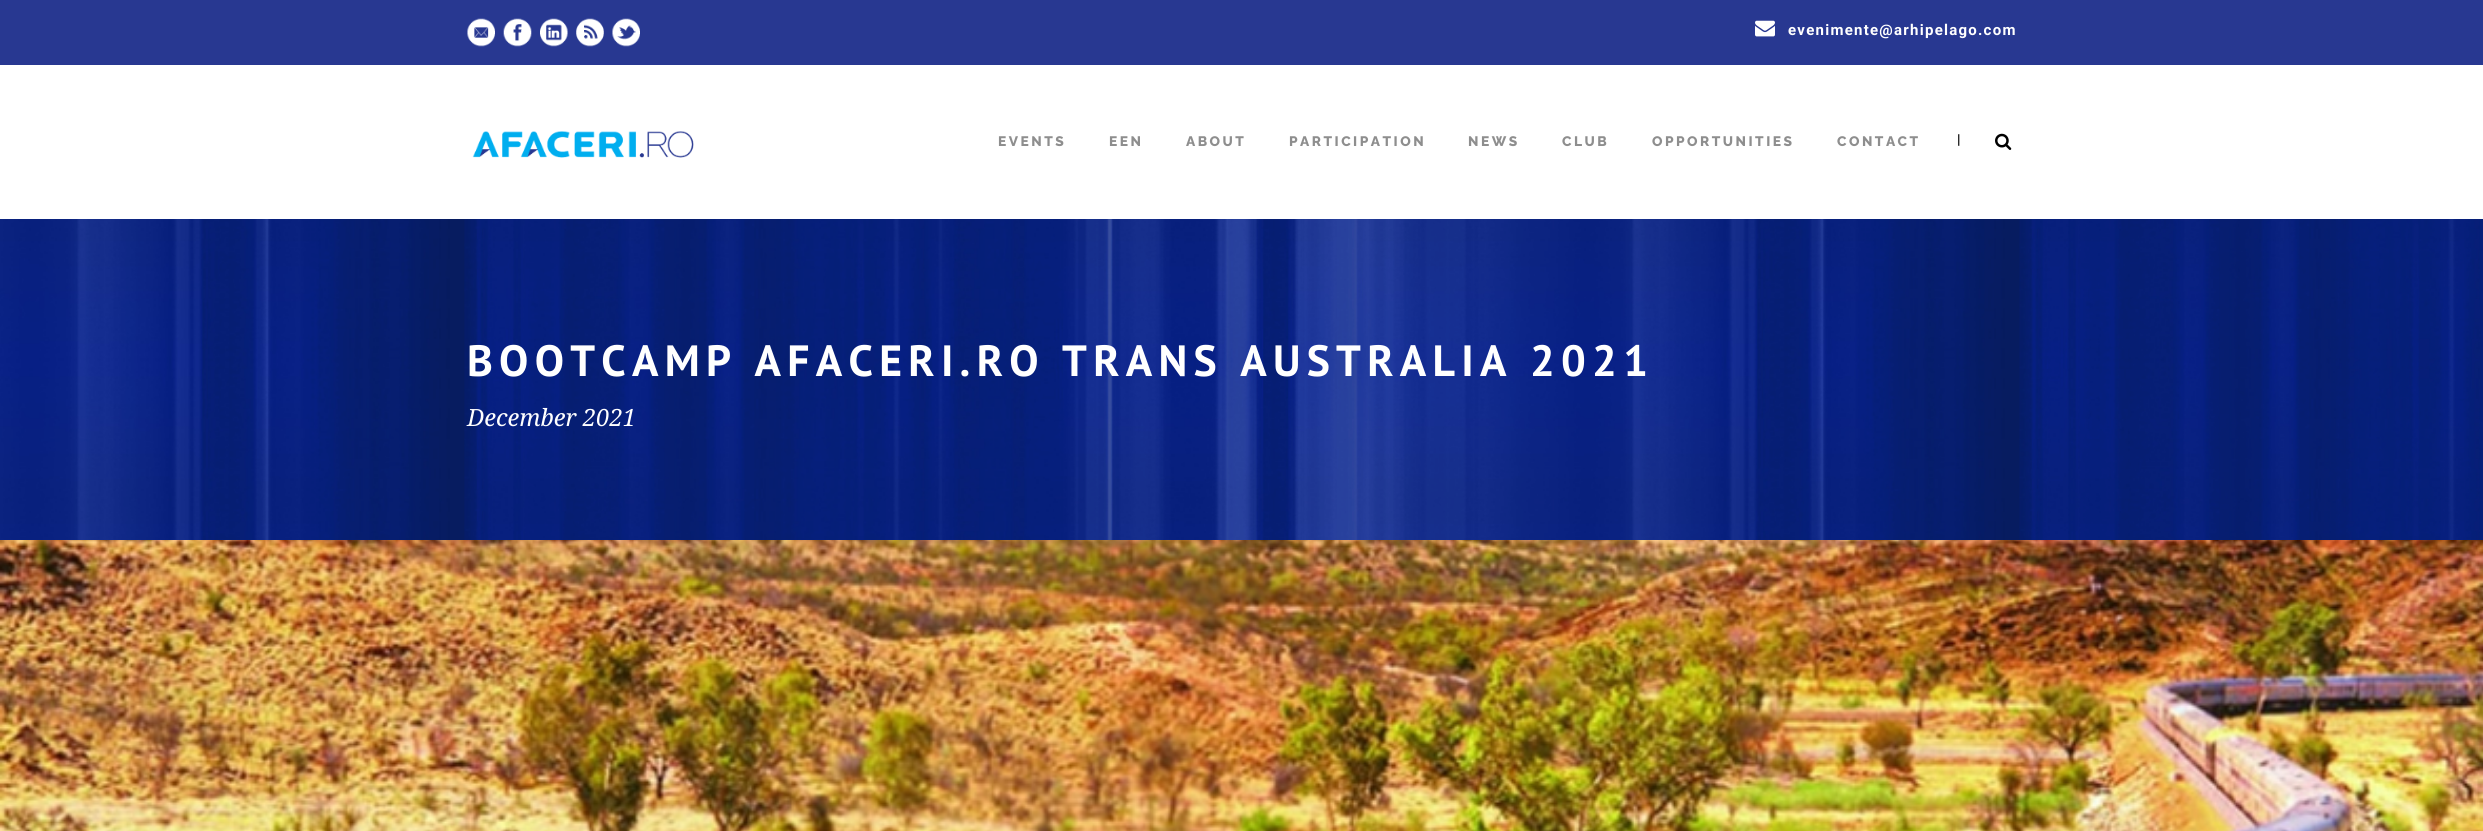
import math
import cairo



def draw_spaced(context, x, y, s, letter, word):
    context.move_to(x, y)
    for ch in s:
        context.show_text(ch)
        context.rel_move_to(letter + word * (ch == ' '), 0)


def draw_image(context, path, x, y, w, h):
    context.save()
    context.set_source_surface(cairo.ImageSurface.create_from_png(path), x, y)
    context.rectangle(x, y, w, h)
    context.fill()
    context.restore()


def draw(context):
    context.set_source_rgb(1, 1, 1)
    context.paint()
    context.set_source_rgb(40 / 255, 56 / 255, 145 / 255)
    context.rectangle(0, 0, 2483, 65)
    context.fill()
    draw_image(context, "images/1.png", 467, 18, 28, 29)
    draw_image(context, "images/2.png", 503, 18, 29, 29)
    draw_image(context, "images/3.png", 540, 18, 28, 29)
    draw_image(context, "images/4.png", 576, 18, 28, 29)
    draw_image(context, "images/5.png", 612, 18, 28, 29)
    draw_image(context, "images/6.png", 1755, 20, 20, 17)
    draw_image(context, "images/7.png", 472, 131, 222, 27)
    draw_image(context, "images/8.png", 1995, 133, 17, 17)
    draw_image(context, "images/9.png", 0, 219, 2483, 321)
    draw_image(context, "images/10.png", 0, 540, 2483, 291)
    context.select_font_face("Roboto", cairo.FontSlant.NORMAL, cairo.FontWeight.BOLD)
    context.set_font_size(15)
    context.set_source_rgb(1, 1, 1)
    draw_spaced(context, 1788, 35, "evenimente@arhipelago.com", 1.25, 0)
    context.select_font_face("Raleway ExtraBold")
    context.set_font_size(13.75)
    context.set_source_rgb(142 / 255, 142 / 255, 142 / 255)
    draw_spaced(context, 998, 146, "EVENTS", 2.5, 0)
    draw_spaced(context, 1109, 146, "EEN", 2.5, 0)
    draw_spaced(context, 1186, 146, "ABOUT", 2.5, 0)
    draw_spaced(context, 1289, 146, "PARTICIPATION", 2.5, 0)
    draw_spaced(context, 1468, 146, "NEWS", 2.5, 0)
    draw_spaced(context, 1562, 146, "CLUB", 2.5, 0)
    draw_spaced(context, 1652, 146, "OPPORTUNITIES", 2.5, 0)
    draw_spaced(context, 1837, 146, "CONTACT", 2.5, 0)
    context.select_font_face("Roboto", cairo.FontSlant.NORMAL, cairo.FontWeight.BOLD)
    context.set_source_rgb(0, 0, 0)
    context.move_to(1957, 144)
    context.show_text("|")
    context.select_font_face("PT Sans", cairo.FontSlant.NORMAL, cairo.FontWeight.BOLD)
    context.set_font_size(43.75)
    context.set_source_rgb(1, 1, 1)
    draw_spaced(context, 467, 376, "BOOTCAMP AFACERI.RO TRANS AUSTRALIA 2021", 6.25, 0)
    context.select_font_face("Droid Serif", cairo.FontSlant.ITALIC)
    context.set_font_size(23.75)
    context.move_to(467, 426)
    context.show_text("December 2021")


surface = cairo.ImageSurface(cairo.Format.RGB24, 2483, 831)
context = cairo.Context(surface)
options = cairo.FontOptions()
options.set_hint_metrics(cairo.HintMetrics.OFF)
options.set_hint_style(cairo.HintStyle.NONE)
context.set_font_options(options)
context.set_miter_limit(4)
draw(context)
surface.write_to_png("out.png")
